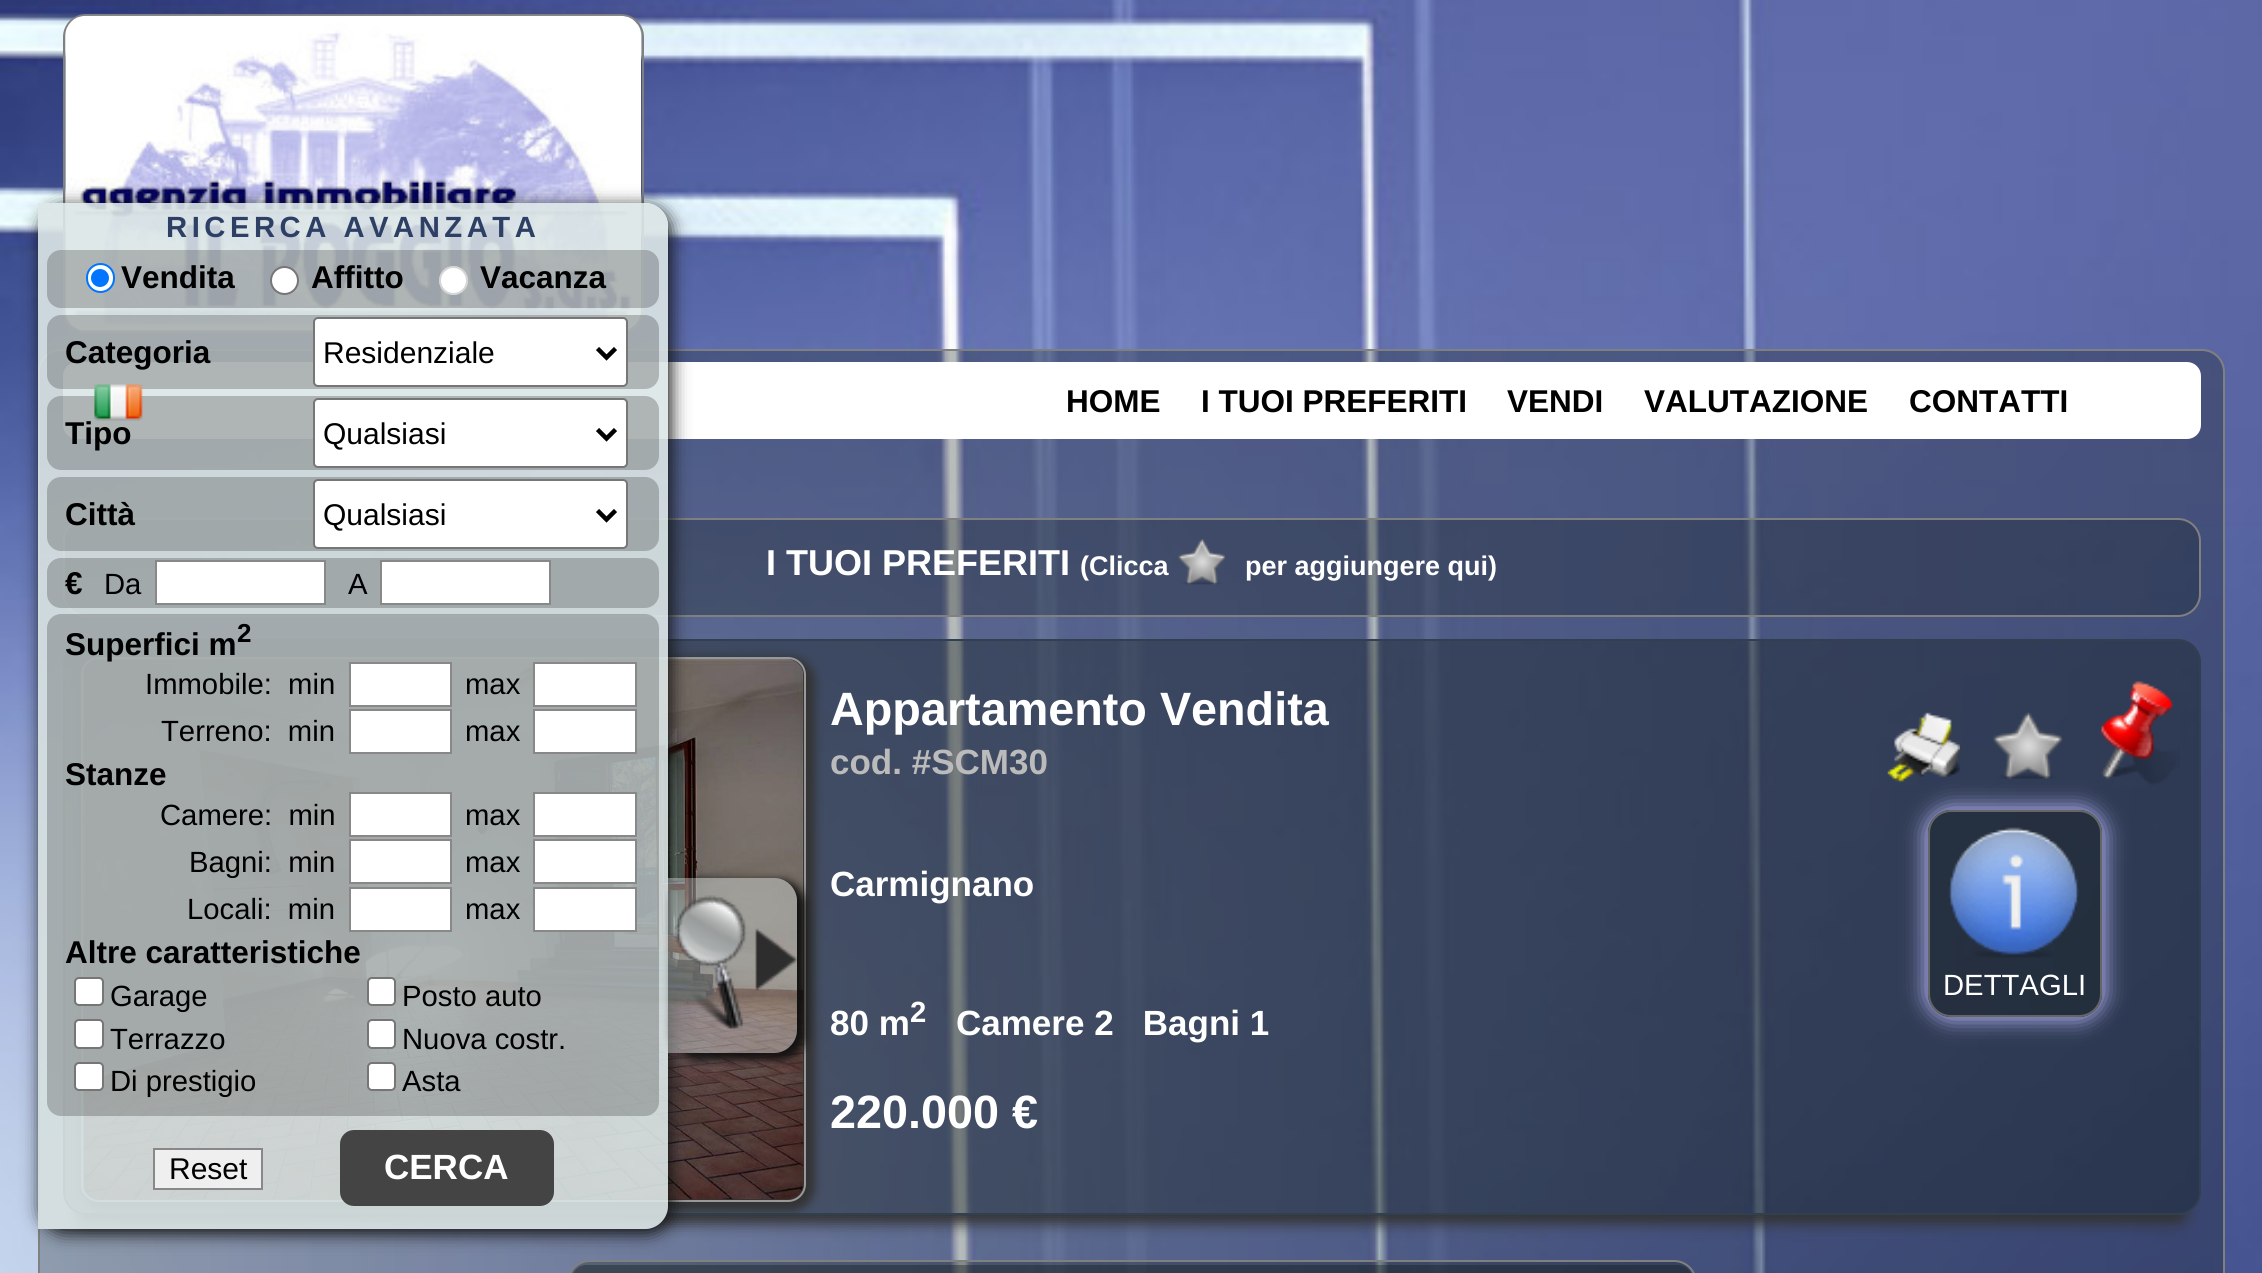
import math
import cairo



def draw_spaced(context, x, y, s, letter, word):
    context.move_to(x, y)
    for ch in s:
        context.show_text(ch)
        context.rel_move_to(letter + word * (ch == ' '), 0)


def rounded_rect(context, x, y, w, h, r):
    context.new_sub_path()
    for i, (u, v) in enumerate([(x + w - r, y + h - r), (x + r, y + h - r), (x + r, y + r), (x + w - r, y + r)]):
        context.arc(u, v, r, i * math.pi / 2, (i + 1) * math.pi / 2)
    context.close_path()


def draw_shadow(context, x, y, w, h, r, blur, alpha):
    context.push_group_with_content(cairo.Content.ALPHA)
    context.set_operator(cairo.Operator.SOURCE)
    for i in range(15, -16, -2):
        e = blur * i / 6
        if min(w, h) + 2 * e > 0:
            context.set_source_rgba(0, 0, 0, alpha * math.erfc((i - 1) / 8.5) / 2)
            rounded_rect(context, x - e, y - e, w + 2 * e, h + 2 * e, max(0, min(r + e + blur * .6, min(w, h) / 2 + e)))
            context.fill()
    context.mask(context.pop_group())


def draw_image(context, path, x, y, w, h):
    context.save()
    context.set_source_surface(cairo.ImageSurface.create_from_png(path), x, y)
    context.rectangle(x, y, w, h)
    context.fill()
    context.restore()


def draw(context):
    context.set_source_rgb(1, 1, 1)
    context.paint()
    draw_image(context, "images/1.png", 0, 0, 2262, 1273)
    context.set_source_rgba(20 / 255, 30 / 255, 30 / 255, 0.3)
    rounded_rect(context, 64, 15, 579, 317, 22)
    context.fill_preserve()
    context.set_source_rgb(128 / 255, 128 / 255, 128 / 255)
    context.stroke()
    draw_image(context, "images/2.png", 65, 15, 577, 316)
    context.set_source_rgba(20 / 255, 30 / 255, 30 / 255, 0.3)
    rounded_rect(context, 39, 350, 2185, 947, 22)
    context.fill_preserve()
    context.set_source_rgb(128 / 255, 128 / 255, 128 / 255)
    context.stroke()
    context.set_source_rgba(20 / 255, 30 / 255, 30 / 255, 0.3)
    rounded_rect(context, 64, 519, 2136, 97, 22)
    context.fill_preserve()
    context.set_source_rgb(128 / 255, 128 / 255, 128 / 255)
    context.stroke()
    context.save()
    context.set_fill_rule(cairo.FillRule.EVEN_ODD)
    context.new_path()
    context.move_to(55, 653)
    context.line_to(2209, 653)
    context.line_to(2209, 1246)
    context.line_to(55, 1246)
    context.close_path()
    context.move_to(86, 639)
    context.line_to(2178, 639)
    context.curve_to(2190.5, 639, 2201, 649.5, 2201, 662)
    context.line_to(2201, 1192)
    context.curve_to(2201, 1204.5, 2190.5, 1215, 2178, 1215)
    context.line_to(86, 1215)
    context.curve_to(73.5, 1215, 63, 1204.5, 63, 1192)
    context.line_to(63, 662)
    context.curve_to(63, 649.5, 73.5, 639, 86, 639)
    context.close_path()
    context.clip()
    context.set_source_rgb(51 / 255, 51 / 255, 51 / 255)
    draw_shadow(context, 77, 675, 2110, 549, 9, 7, 1)
    context.restore()
    context.set_source_rgba(20 / 255, 30 / 255, 30 / 255, 0.4)
    rounded_rect(context, 64, 640, 2136, 574, 22)
    context.fill_preserve()
    context.set_source_rgb(48 / 255, 64 / 255, 80 / 255)
    context.stroke()
    context.set_source_rgb(51 / 255, 51 / 255, 51 / 255)
    draw_shadow(context, 81, 657, 734, 554, 23, 4.5, 1)
    rounded_rect(context, 82, 658, 723, 543, 17)
    context.set_source_rgb(153 / 255, 153 / 255, 153 / 255)
    context.stroke()
    draw_image(context, "images/5.png", 83, 659, 721, 541)
    context.set_source_rgba(20 / 255, 30 / 255, 30 / 255, 0.3)
    rounded_rect(context, 568, 1261, 1128, 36, 22)
    context.fill_preserve()
    context.set_source_rgb(128 / 255, 128 / 255, 128 / 255)
    context.stroke()
    context.set_source_rgb(1, 1, 1)
    rounded_rect(context, 63, 362, 2138, 77, 14)
    context.fill()
    context.save()
    context.set_fill_rule(cairo.FillRule.EVEN_ODD)
    context.new_path()
    context.move_to(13, 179)
    context.line_to(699, 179)
    context.line_to(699, 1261)
    context.line_to(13, 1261)
    context.close_path()
    context.move_to(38, 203)
    context.line_to(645, 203)
    context.curve_to(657.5, 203, 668, 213.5, 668, 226)
    context.line_to(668, 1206)
    context.curve_to(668, 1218.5, 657.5, 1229, 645, 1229)
    context.line_to(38, 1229)
    context.close_path()
    context.clip()
    context.set_source_rgb(17 / 255, 17 / 255, 17 / 255)
    draw_shadow(context, 41, 207, 630, 1026, 23, 9, 1)
    context.restore()
    context.set_source_rgba(220 / 255, 230 / 255, 230 / 255, 0.9)
    context.new_path()
    context.move_to(38, 203)
    context.line_to(645, 203)
    context.curve_to(657.5, 203, 668, 213.5, 668, 226)
    context.line_to(668, 1206)
    context.curve_to(668, 1218.5, 657.5, 1229, 645, 1229)
    context.line_to(38, 1229)
    context.close_path()
    context.fill()
    context.set_source_rgba(60 / 255, 60 / 255, 60 / 255, 0.3)
    rounded_rect(context, 47, 250, 612, 58, 14)
    context.fill()
    context.set_source_rgb(1, 1, 1)
    rounded_rect(context, 87, 264, 27, 28, 13.5)
    context.fill_preserve()
    context.set_source_rgb(0, 117 / 255, 1)
    context.stroke()
    context.arc(100, 278, 9, 0, 2 * math.pi)
    context.fill()
    context.set_source_rgb(1, 1, 1)
    context.arc(284.5, 280.5, 13.5, 0, 2 * math.pi)
    context.fill_preserve()
    context.set_source_rgb(118 / 255, 118 / 255, 118 / 255)
    context.stroke()
    context.set_source_rgb(1, 1, 1)
    context.arc(453.5, 280.5, 14.5, 0, 2 * math.pi)
    context.fill()
    context.arc(453.5, 280.5, 13.5, 0, 2 * math.pi)
    context.set_source_rgba(118 / 255, 118 / 255, 118 / 255, 0.3)
    context.stroke()
    context.set_source_rgba(60 / 255, 60 / 255, 60 / 255, 0.3)
    rounded_rect(context, 47, 315, 612, 74, 14)
    context.fill()
    context.set_source_rgb(1, 1, 1)
    rounded_rect(context, 314, 318, 313, 68, 4)
    context.fill_preserve()
    context.set_source_rgb(118 / 255, 118 / 255, 118 / 255)
    context.stroke()
    context.new_path()
    context.move_to(597.5, 348.5)
    context.line_to(606.5, 357.5)
    context.line_to(615.5, 348.5)
    context.set_source_rgb(0, 0, 0)
    context.set_line_width(4.5)
    context.stroke()
    context.set_source_rgba(60 / 255, 60 / 255, 60 / 255, 0.3)
    rounded_rect(context, 47, 396, 612, 74, 14)
    context.fill()
    context.set_source_rgb(1, 1, 1)
    rounded_rect(context, 314, 399, 313, 68, 4)
    context.fill_preserve()
    context.set_source_rgb(118 / 255, 118 / 255, 118 / 255)
    context.set_line_width(2)
    context.stroke()
    context.new_path()
    context.move_to(597.5, 429.5)
    context.line_to(606.5, 438.5)
    context.line_to(615.5, 429.5)
    context.set_source_rgb(0, 0, 0)
    context.set_line_width(4.5)
    context.stroke()
    context.set_source_rgba(60 / 255, 60 / 255, 60 / 255, 0.3)
    rounded_rect(context, 47, 477, 612, 74, 14)
    context.fill()
    context.set_source_rgb(1, 1, 1)
    rounded_rect(context, 314, 480, 313, 68, 4)
    context.fill_preserve()
    context.set_source_rgb(118 / 255, 118 / 255, 118 / 255)
    context.set_line_width(2)
    context.stroke()
    context.new_path()
    context.move_to(597.5, 510.5)
    context.line_to(606.5, 519.5)
    context.line_to(615.5, 510.5)
    context.set_source_rgb(0, 0, 0)
    context.set_line_width(4.5)
    context.stroke()
    context.set_source_rgba(60 / 255, 60 / 255, 60 / 255, 0.3)
    rounded_rect(context, 47, 558, 612, 50, 14)
    context.fill()
    context.set_source_rgb(1, 1, 1)
    context.rectangle(156, 561, 169, 43)
    context.fill_preserve()
    context.set_source_rgb(136 / 255, 136 / 255, 136 / 255)
    context.set_line_width(2)
    context.stroke()
    context.set_source_rgb(1, 1, 1)
    context.rectangle(381, 561, 169, 43)
    context.fill_preserve()
    context.set_source_rgb(136 / 255, 136 / 255, 136 / 255)
    context.stroke()
    context.set_source_rgba(60 / 255, 60 / 255, 60 / 255, 0.3)
    rounded_rect(context, 47, 614, 612, 502, 14)
    context.fill()
    context.set_source_rgb(1, 1, 1)
    context.rectangle(350, 663, 101, 43)
    context.fill_preserve()
    context.set_source_rgb(136 / 255, 136 / 255, 136 / 255)
    context.stroke()
    context.set_source_rgb(1, 1, 1)
    context.rectangle(534, 663, 102, 43)
    context.fill_preserve()
    context.set_source_rgb(136 / 255, 136 / 255, 136 / 255)
    context.stroke()
    context.set_source_rgb(1, 1, 1)
    context.rectangle(350, 710, 101, 43)
    context.fill_preserve()
    context.set_source_rgb(136 / 255, 136 / 255, 136 / 255)
    context.stroke()
    context.set_source_rgb(1, 1, 1)
    context.rectangle(534, 710, 102, 43)
    context.fill_preserve()
    context.set_source_rgb(136 / 255, 136 / 255, 136 / 255)
    context.stroke()
    context.set_source_rgb(1, 1, 1)
    context.rectangle(350, 793, 101, 43)
    context.fill_preserve()
    context.set_source_rgb(136 / 255, 136 / 255, 136 / 255)
    context.stroke()
    context.set_source_rgb(1, 1, 1)
    context.rectangle(534, 793, 102, 43)
    context.fill_preserve()
    context.set_source_rgb(136 / 255, 136 / 255, 136 / 255)
    context.stroke()
    context.set_source_rgb(1, 1, 1)
    context.rectangle(350, 840, 101, 43)
    context.fill_preserve()
    context.set_source_rgb(136 / 255, 136 / 255, 136 / 255)
    context.stroke()
    context.set_source_rgb(1, 1, 1)
    context.rectangle(534, 840, 102, 43)
    context.fill_preserve()
    context.set_source_rgb(136 / 255, 136 / 255, 136 / 255)
    context.stroke()
    context.set_source_rgb(1, 1, 1)
    context.rectangle(350, 888, 101, 43)
    context.fill_preserve()
    context.set_source_rgb(136 / 255, 136 / 255, 136 / 255)
    context.stroke()
    context.set_source_rgb(1, 1, 1)
    context.rectangle(534, 888, 102, 43)
    context.fill_preserve()
    context.set_source_rgb(136 / 255, 136 / 255, 136 / 255)
    context.stroke()
    context.set_source_rgb(1, 1, 1)
    rounded_rect(context, 75, 978, 28, 27, 4)
    context.fill_preserve()
    context.set_source_rgb(118 / 255, 118 / 255, 118 / 255)
    context.stroke()
    context.set_source_rgb(1, 1, 1)
    rounded_rect(context, 368, 978, 27, 27, 4)
    context.fill_preserve()
    context.set_source_rgb(118 / 255, 118 / 255, 118 / 255)
    context.stroke()
    context.set_source_rgb(1, 1, 1)
    rounded_rect(context, 75, 1020, 28, 28, 4)
    context.fill_preserve()
    context.set_source_rgb(118 / 255, 118 / 255, 118 / 255)
    context.stroke()
    context.set_source_rgb(1, 1, 1)
    rounded_rect(context, 368, 1020, 27, 28, 4)
    context.fill_preserve()
    context.set_source_rgb(118 / 255, 118 / 255, 118 / 255)
    context.stroke()
    context.set_source_rgb(1, 1, 1)
    rounded_rect(context, 75, 1063, 28, 27, 4)
    context.fill_preserve()
    context.set_source_rgb(118 / 255, 118 / 255, 118 / 255)
    context.stroke()
    context.set_source_rgb(1, 1, 1)
    rounded_rect(context, 368, 1063, 27, 27, 4)
    context.fill_preserve()
    context.set_source_rgb(118 / 255, 118 / 255, 118 / 255)
    context.stroke()
    context.set_source_rgb(239 / 255, 239 / 255, 239 / 255)
    context.rectangle(154, 1149, 108, 40)
    context.fill_preserve()
    context.set_source_rgb(136 / 255, 136 / 255, 136 / 255)
    context.stroke()
    context.set_source_rgb(68 / 255, 68 / 255, 68 / 255)
    rounded_rect(context, 340, 1130, 214, 76, 14)
    context.fill()
    context.save()
    context.set_fill_rule(cairo.FillRule.EVEN_ODD)
    context.new_path()
    context.move_to(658, 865)
    context.line_to(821, 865)
    context.line_to(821, 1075)
    context.line_to(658, 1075)
    context.close_path()
    context.move_to(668, 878)
    context.line_to(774, 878)
    context.curve_to(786.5, 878, 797, 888.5, 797, 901)
    context.line_to(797, 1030)
    context.curve_to(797, 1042.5, 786.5, 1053, 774, 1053)
    context.line_to(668, 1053)
    context.close_path()
    context.clip()
    context.set_source_rgb(17 / 255, 17 / 255, 17 / 255)
    draw_shadow(context, 673, 880, 133, 180, 25, 4.5, 1)
    context.restore()
    context.set_source_rgba(220 / 255, 230 / 255, 230 / 255, 0.4)
    context.new_path()
    context.move_to(668, 878)
    context.line_to(774, 878)
    context.curve_to(786.5, 878, 797, 888.5, 797, 901)
    context.line_to(797, 1030)
    context.curve_to(797, 1042.5, 786.5, 1053, 774, 1053)
    context.line_to(668, 1053)
    context.close_path()
    context.fill()
    draw_image(context, "images/3.png", 674, 895, 123, 135)
    draw_image(context, "images/4.png", 1178, 539, 48, 46)
    context.save()
    context.set_fill_rule(cairo.FillRule.EVEN_ODD)
    context.new_path()
    context.move_to(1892, 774)
    context.line_to(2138, 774)
    context.line_to(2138, 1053)
    context.line_to(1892, 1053)
    context.close_path()
    context.move_to(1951, 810)
    context.line_to(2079, 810)
    context.curve_to(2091.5, 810, 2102, 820.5, 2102, 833)
    context.line_to(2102, 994)
    context.curve_to(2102, 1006.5, 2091.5, 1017, 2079, 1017)
    context.line_to(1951, 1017)
    context.curve_to(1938.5, 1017, 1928, 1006.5, 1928, 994)
    context.line_to(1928, 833)
    context.curve_to(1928, 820.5, 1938.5, 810, 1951, 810)
    context.close_path()
    context.clip()
    context.set_source_rgb(187 / 255, 187 / 255, 1)
    draw_shadow(context, 1926, 808, 178, 211, 25, 11, 1)
    context.restore()
    draw_image(context, "images/6.png", 1887, 712, 73, 70)
    draw_image(context, "images/7.png", 1993, 712, 70, 67)
    draw_image(context, "images/8.png", 2099, 681, 81, 104)
    context.set_source_rgba(20 / 255, 30 / 255, 30 / 255, 0.4)
    rounded_rect(context, 1929, 811, 172, 205, 22)
    context.fill_preserve()
    context.set_source_rgb(102 / 255, 102 / 255, 102 / 255)
    context.stroke()
    draw_image(context, "images/9.png", 1948, 827, 131, 131)
    context.set_source_rgba(20 / 255, 30 / 255, 30 / 255, 0.4)
    context.new_path()
    context.move_to(586, 1265)
    context.line_to(1678, 1265)
    context.curve_to(1685.5, 1265, 1692, 1271.5, 1692, 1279)
    context.line_to(1692, 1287)
    context.line_to(572, 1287)
    context.line_to(572, 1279)
    context.curve_to(572, 1271.5, 578.5, 1265, 586, 1265)
    context.close_path()
    context.fill()
    draw_image(context, "images/10.png", 94, 384, 49, 37)
    context.select_font_face("Liberation Sans", cairo.FontSlant.NORMAL, cairo.FontWeight.BOLD)
    context.set_font_size(29.25)
    context.set_source_rgb(45 / 255, 63 / 255, 100 / 255)
    draw_spaced(context, 166, 237, "RICERCA AVANZATA", 4.5, 0)
    context.set_font_size(31.5)
    context.set_source_rgb(0, 0, 0)
    context.move_to(121, 288)
    context.show_text("Vendita")
    context.move_to(311, 288)
    context.show_text("Affitto")
    context.move_to(480, 288)
    context.show_text("Vacanza")
    context.move_to(65, 363)
    context.show_text("Categoria")
    context.select_font_face("Liberation Sans")
    context.set_font_size(30)
    context.move_to(323, 363)
    context.show_text("Residenziale")
    context.select_font_face("Liberation Sans", cairo.FontSlant.NORMAL, cairo.FontWeight.BOLD)
    context.set_font_size(31.5)
    context.move_to(65, 444)
    context.show_text("Tipo")
    context.select_font_face("Liberation Sans")
    context.set_font_size(30)
    context.move_to(323, 444)
    context.show_text("Qualsiasi")
    context.select_font_face("Liberation Sans", cairo.FontSlant.NORMAL, cairo.FontWeight.BOLD)
    context.set_font_size(31.5)
    context.move_to(65, 525)
    context.show_text("Città")
    context.select_font_face("Liberation Sans")
    context.set_font_size(30)
    context.move_to(323, 525)
    context.show_text("Qualsiasi")
    context.select_font_face("Liberation Sans", cairo.FontSlant.NORMAL, cairo.FontWeight.BOLD)
    context.set_font_size(31.5)
    context.move_to(65, 594)
    context.show_text("€")
    context.select_font_face("Liberation Sans")
    context.set_font_size(29.25)
    context.move_to(104, 594)
    context.show_text("Da")
    context.move_to(348, 594)
    context.show_text("A")
    context.select_font_face("Liberation Sans", cairo.FontSlant.NORMAL, cairo.FontWeight.BOLD)
    context.set_font_size(31.5)
    context.move_to(65, 655)
    context.show_text("Superfici m")
    context.set_font_size(26)
    context.move_to(237, 642)
    context.show_text("2")
    context.select_font_face("Liberation Sans")
    context.set_font_size(29.25)
    context.move_to(145, 694)
    context.show_text("Immobile:  min")
    context.move_to(465, 694)
    context.show_text("max")
    context.move_to(161, 741)
    context.show_text("Terreno:  min")
    context.move_to(465, 741)
    context.show_text("max")
    context.select_font_face("Liberation Sans", cairo.FontSlant.NORMAL, cairo.FontWeight.BOLD)
    context.set_font_size(31.5)
    context.move_to(65, 785)
    context.show_text("Stanze")
    context.select_font_face("Liberation Sans")
    context.set_font_size(29.25)
    context.move_to(160, 825)
    context.show_text("Camere:  min")
    context.move_to(465, 825)
    context.show_text("max")
    context.move_to(189, 872)
    context.show_text("Bagni:  min")
    context.move_to(465, 872)
    context.show_text("max")
    context.move_to(187, 919)
    context.show_text("Locali:  min")
    context.move_to(465, 919)
    context.show_text("max")
    context.select_font_face("Liberation Sans", cairo.FontSlant.NORMAL, cairo.FontWeight.BOLD)
    context.set_font_size(31.5)
    context.move_to(65, 963)
    context.show_text("Altre caratteristiche")
    context.select_font_face("Liberation Sans")
    context.set_font_size(29.25)
    context.move_to(110, 1006)
    context.show_text("Garage")
    context.move_to(402, 1006)
    context.show_text("Posto auto")
    context.move_to(110, 1049)
    context.show_text("Terrazzo")
    context.move_to(402, 1049)
    context.show_text("Nuova costr.")
    context.move_to(110, 1091)
    context.show_text("Di prestigio")
    context.move_to(402, 1091)
    context.show_text("Asta")
    context.set_font_size(30)
    context.move_to(169, 1179)
    context.show_text("Reset")
    context.select_font_face("Liberation Sans", cairo.FontSlant.NORMAL, cairo.FontWeight.BOLD)
    context.set_font_size(35)
    context.set_source_rgb(1, 1, 1)
    context.move_to(384, 1179)
    context.show_text("CERCA")
    context.set_font_size(36)
    context.move_to(766, 575)
    context.show_text("I TUOI PREFERITI")
    context.set_font_size(27)
    context.move_to(1080, 575)
    context.show_text("(Clicca")
    context.move_to(1245, 575)
    context.show_text("per aggiungere qui)")
    context.set_font_size(46.75)
    context.move_to(830, 725)
    context.show_text("Appartamento Vendita")
    context.set_font_size(35)
    context.set_source_rgb(187 / 255, 187 / 255, 187 / 255)
    context.move_to(830, 774)
    context.show_text("cod. #SCM30")
    context.set_source_rgb(1, 1, 1)
    context.move_to(830, 896)
    context.show_text("Carmignano")
    context.move_to(830, 1035)
    context.show_text("80 m")
    context.set_font_size(29.25)
    context.move_to(910, 1022)
    context.show_text("2")
    context.set_font_size(35)
    context.move_to(956, 1035)
    context.show_text("Camere 2   Bagni 1")
    context.set_font_size(46.75)
    context.move_to(830, 1128)
    context.show_text("220.000 €")
    context.select_font_face("Liberation Sans")
    context.set_font_size(29.25)
    context.move_to(1943, 995)
    context.show_text("DETTAGLI")
    context.select_font_face("Liberation Sans", cairo.FontSlant.NORMAL, cairo.FontWeight.BOLD)
    context.set_font_size(31.5)
    context.set_source_rgb(0, 0, 0)
    context.move_to(1066, 412)
    context.show_text("HOME")
    context.move_to(1201, 412)
    context.show_text("I TUOI PREFERITI")
    context.move_to(1507, 412)
    context.show_text("VENDI")
    context.move_to(1644, 412)
    context.show_text("VALUTAZIONE")
    context.move_to(1909, 412)
    context.show_text("CONTATTI")


surface = cairo.ImageSurface(cairo.Format.RGB24, 2262, 1273)
context = cairo.Context(surface)
options = cairo.FontOptions()
options.set_hint_metrics(cairo.HintMetrics.OFF)
options.set_hint_style(cairo.HintStyle.NONE)
context.set_font_options(options)
context.set_miter_limit(4)
draw(context)
surface.write_to_png("out.png")
